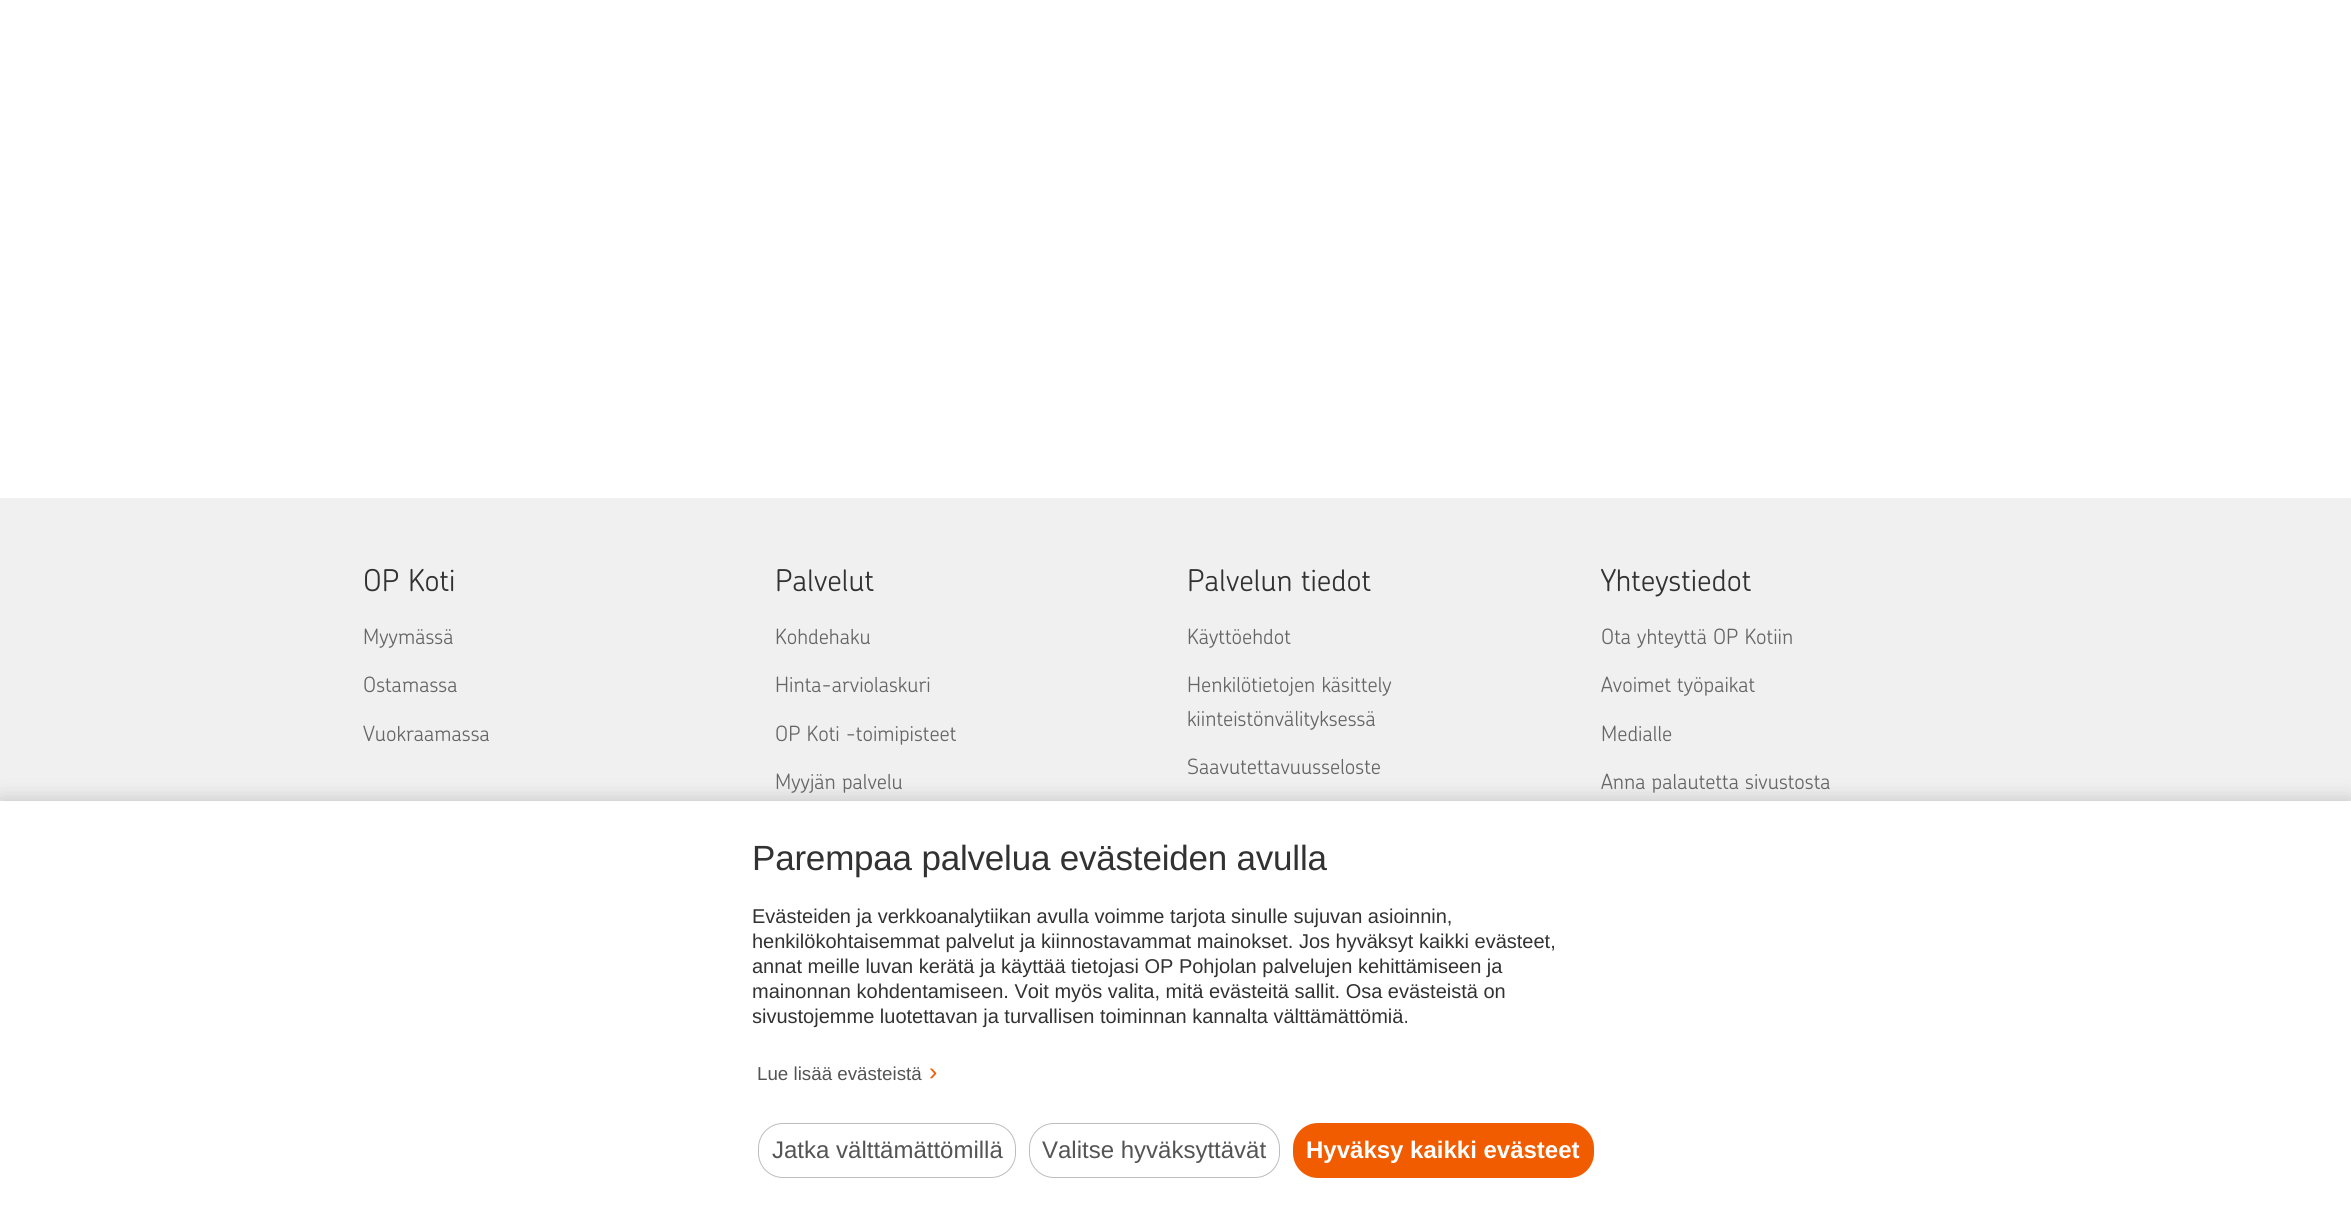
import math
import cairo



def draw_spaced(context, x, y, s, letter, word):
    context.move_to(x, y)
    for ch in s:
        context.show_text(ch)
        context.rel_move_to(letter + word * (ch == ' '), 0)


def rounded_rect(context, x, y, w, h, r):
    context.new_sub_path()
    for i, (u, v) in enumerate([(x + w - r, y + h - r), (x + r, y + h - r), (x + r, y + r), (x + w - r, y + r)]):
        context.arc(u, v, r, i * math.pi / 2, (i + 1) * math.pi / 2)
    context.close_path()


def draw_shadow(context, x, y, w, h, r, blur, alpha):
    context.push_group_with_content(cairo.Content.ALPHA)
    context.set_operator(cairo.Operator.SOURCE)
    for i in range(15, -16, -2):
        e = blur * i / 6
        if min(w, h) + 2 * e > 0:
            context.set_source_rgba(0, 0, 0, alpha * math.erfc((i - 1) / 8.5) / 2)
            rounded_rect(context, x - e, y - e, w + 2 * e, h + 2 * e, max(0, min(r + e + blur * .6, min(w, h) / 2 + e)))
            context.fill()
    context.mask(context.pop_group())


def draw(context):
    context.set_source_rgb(1, 1, 1)
    context.paint()
    context.set_source_rgb(240 / 255, 240 / 255, 240 / 255)
    context.rectangle(0, 498, 2351, 303)
    context.fill()
    context.set_source_rgb(0, 0, 0)
    draw_shadow(context, 0, 811, 2351, 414, 0, 12.5, 0.24)
    draw_shadow(context, 0, 801, 2351, 414, 0, 12.5, 0.12)
    context.set_source_rgb(1, 1, 1)
    context.rectangle(0, 801, 2351, 414)
    context.fill()
    rounded_rect(context, 758.5, 1123.5, 257, 54, 24.5)
    context.set_source_rgb(189 / 255, 189 / 255, 189 / 255)
    context.set_line_width(1)
    context.stroke()
    rounded_rect(context, 1029.5, 1123.5, 250, 54, 24.5)
    context.stroke()
    context.set_source_rgb(241 / 255, 92 / 255, 0)
    rounded_rect(context, 1293, 1123, 301, 55, 25)
    context.fill()
    context.select_font_face("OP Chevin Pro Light")
    context.set_font_size(30)
    context.set_source_rgb(50 / 255, 50 / 255, 50 / 255)
    context.move_to(363, 591)
    context.show_text("OP Koti")
    context.set_font_size(21)
    context.set_source_rgb(102 / 255, 102 / 255, 102 / 255)
    context.move_to(363, 644)
    context.show_text("Myymässä")
    context.move_to(363, 692)
    context.show_text("Ostamassa")
    context.move_to(363, 741)
    context.show_text("Vuokraamassa")
    context.set_font_size(30)
    context.set_source_rgb(50 / 255, 50 / 255, 50 / 255)
    context.move_to(775, 591)
    context.show_text("Palvelut")
    context.set_font_size(21)
    context.set_source_rgb(102 / 255, 102 / 255, 102 / 255)
    context.move_to(775, 644)
    context.show_text("Kohdehaku")
    context.move_to(775, 692)
    context.show_text("Hinta-arviolaskuri")
    context.move_to(775, 741)
    context.show_text("OP Koti -toimipisteet")
    context.move_to(775, 789)
    context.show_text("Myyjän palvelu")
    context.set_font_size(30)
    context.set_source_rgb(50 / 255, 50 / 255, 50 / 255)
    context.move_to(1187, 591)
    context.show_text("Palvelun tiedot")
    context.set_font_size(21)
    context.set_source_rgb(102 / 255, 102 / 255, 102 / 255)
    context.move_to(1187, 644)
    context.show_text("Käyttöehdot")
    context.move_to(1187, 692)
    context.show_text("Henkilötietojen käsittely")
    context.move_to(1187, 726)
    context.show_text("kiinteistönvälityksessä")
    context.move_to(1187, 774)
    context.show_text("Saavutettavuusseloste")
    context.set_font_size(30)
    context.set_source_rgb(50 / 255, 50 / 255, 50 / 255)
    context.move_to(1601, 591)
    context.show_text("Yhteystiedot")
    context.set_font_size(21)
    context.set_source_rgb(102 / 255, 102 / 255, 102 / 255)
    context.move_to(1601, 644)
    context.show_text("Ota yhteyttä OP Kotiin")
    context.move_to(1601, 692)
    context.show_text("Avoimet työpaikat")
    context.move_to(1601, 741)
    context.show_text("Medialle")
    context.move_to(1601, 789)
    context.show_text("Anna palautetta sivustosta")
    context.select_font_face("Liberation Sans")
    context.set_font_size(35)
    context.set_source_rgb(50 / 255, 50 / 255, 50 / 255)
    draw_spaced(context, 752, 870, "Parempaa palvelua evästeiden avulla", -0.2, 0)
    context.set_font_size(20)
    context.move_to(752, 923)
    context.show_text("Evästeiden ja verkkoanalytiikan avulla voimme tarjota sinulle sujuvan asioinnin,")
    context.move_to(752, 948)
    context.show_text("henkilökohtaisemmat palvelut ja kiinnostavammat mainokset. Jos hyväksyt kaikki evästeet,")
    context.move_to(752, 973)
    context.show_text("annat meille luvan kerätä ja käyttää tietojasi OP Pohjolan palvelujen kehittämiseen ja")
    context.move_to(752, 998)
    context.show_text("mainonnan kohdentamiseen. Voit myös valita, mitä evästeitä sallit. Osa evästeistä on")
    context.save()
    context.rectangle(753, 839, 847, 252)
    context.clip()
    context.move_to(752, 1023)
    context.show_text("sivustojemme luotettavan ja turvallisen toiminnan kannalta välttämättömiä.")
    context.restore()
    context.set_font_size(18.75)
    context.set_source_rgb(84 / 255, 84 / 255, 84 / 255)
    context.move_to(757, 1080)
    context.show_text("Lue lisää evästeistä")
    context.set_font_size(25)
    context.set_source_rgb(241 / 255, 92 / 255, 0)
    context.move_to(929, 1080)
    context.show_text("›")
    context.set_font_size(24)
    context.set_source_rgb(84 / 255, 84 / 255, 84 / 255)
    context.move_to(772, 1158)
    context.show_text("Jatka välttämättömillä")
    context.move_to(1042, 1158)
    context.show_text("Valitse hyväksyttävät")
    context.select_font_face("Liberation Sans", cairo.FontSlant.NORMAL, cairo.FontWeight.BOLD)
    context.set_source_rgb(1, 1, 1)
    context.move_to(1306, 1158)
    context.show_text("Hyväksy kaikki evästeet")


surface = cairo.ImageSurface(cairo.Format.RGB24, 2351, 1215)
context = cairo.Context(surface)
options = cairo.FontOptions()
options.set_hint_metrics(cairo.HintMetrics.OFF)
options.set_hint_style(cairo.HintStyle.NONE)
context.set_font_options(options)
context.set_miter_limit(4)
draw(context)
surface.write_to_png("out.png")
